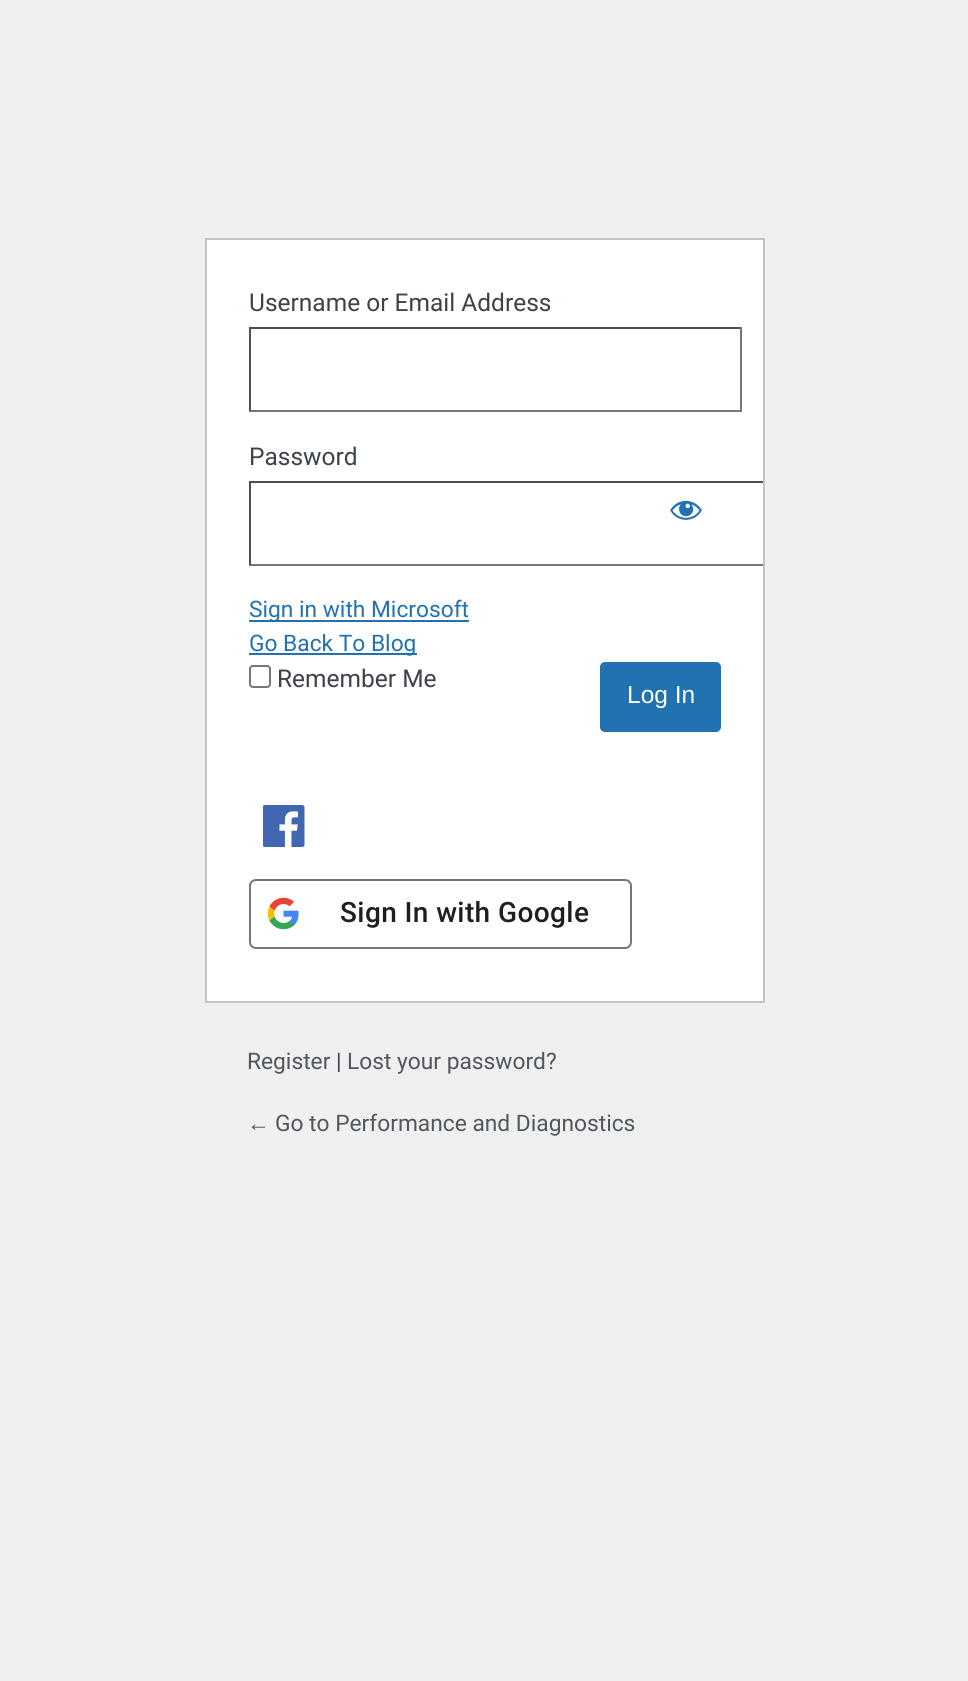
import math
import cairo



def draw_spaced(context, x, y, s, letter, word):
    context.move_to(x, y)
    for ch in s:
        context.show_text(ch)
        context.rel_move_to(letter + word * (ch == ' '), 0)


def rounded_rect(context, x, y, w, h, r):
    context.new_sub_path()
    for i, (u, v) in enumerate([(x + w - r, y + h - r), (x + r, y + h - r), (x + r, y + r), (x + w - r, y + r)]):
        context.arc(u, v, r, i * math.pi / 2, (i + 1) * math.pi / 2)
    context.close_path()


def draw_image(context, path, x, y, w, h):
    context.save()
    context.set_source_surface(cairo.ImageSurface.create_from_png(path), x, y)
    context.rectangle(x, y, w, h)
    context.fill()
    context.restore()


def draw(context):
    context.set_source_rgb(240 / 255, 240 / 255, 241 / 255)
    context.paint()
    context.set_source_rgb(1, 1, 1)
    context.rectangle(206, 239, 558, 763)
    context.fill_preserve()
    context.set_source_rgb(195 / 255, 196 / 255, 199 / 255)
    context.stroke()
    context.set_source_rgb(79 / 255, 79 / 255, 79 / 255)
    context.rectangle(249, 327, 493, 2)
    context.fill()
    context.set_source_rgb(118 / 255, 118 / 255, 118 / 255)
    context.rectangle(740, 327, 2, 84)
    context.fill()
    context.rectangle(249, 410, 493, 2)
    context.fill()
    context.set_source_rgb(79 / 255, 79 / 255, 79 / 255)
    context.rectangle(249, 327, 2, 84)
    context.fill()
    context.rectangle(249, 481, 514, 2)
    context.fill()
    context.set_source_rgb(118 / 255, 118 / 255, 118 / 255)
    context.rectangle(249, 564, 514, 2)
    context.fill()
    context.set_source_rgb(79 / 255, 79 / 255, 79 / 255)
    context.rectangle(249, 481, 2, 84)
    context.fill()
    draw_image(context, "images/1.png", 670, 500, 32, 20)
    context.set_source_rgb(34 / 255, 113 / 255, 177 / 255)
    context.rectangle(249, 620, 220, 2)
    context.fill()
    context.rectangle(249, 653, 168, 2)
    context.fill()
    rounded_rect(context, 250, 666, 20, 21, 3)
    context.set_source_rgb(118 / 255, 118 / 255, 118 / 255)
    context.stroke()
    context.set_source_rgb(34 / 255, 113 / 255, 177 / 255)
    rounded_rect(context, 601, 663, 119, 68, 4)
    context.fill_preserve()
    context.stroke()
    draw_image(context, "images/2.png", 263, 805, 42, 42)
    rounded_rect(context, 250, 880, 381, 68, 6)
    context.set_source_rgb(116 / 255, 119 / 255, 117 / 255)
    context.stroke()
    draw_image(context, "images/3.png", 267, 897, 32, 33)
    context.select_font_face("Roboto")
    context.set_font_size(24.5)
    context.set_source_rgb(60 / 255, 67 / 255, 74 / 255)
    context.move_to(249, 311)
    context.show_text("Username or Email Address")
    context.move_to(249, 465)
    context.show_text("Password")
    context.set_font_size(22.75)
    context.set_source_rgb(34 / 255, 113 / 255, 177 / 255)
    context.move_to(249, 617)
    context.show_text("Sign in with Microsoft")
    context.move_to(249, 651)
    context.show_text("Go Back To Blog")
    context.set_font_size(24.5)
    context.set_source_rgb(60 / 255, 67 / 255, 74 / 255)
    context.move_to(277, 687)
    context.show_text("Remember Me")
    context.select_font_face("Liberation Sans")
    context.set_source_rgb(1, 1, 1)
    context.move_to(627, 703)
    context.show_text("Log In")
    context.select_font_face("Roboto Medium")
    context.set_font_size(28)
    context.set_source_rgb(31 / 255, 31 / 255, 31 / 255)
    draw_spaced(context, 340, 922, "Sign In with Google", 0.4, 0)
    context.select_font_face("Roboto")
    context.set_font_size(22.75)
    context.set_source_rgb(80 / 255, 87 / 255, 94 / 255)
    context.move_to(247, 1069)
    context.show_text("Register")
    context.set_source_rgb(60 / 255, 67 / 255, 74 / 255)
    context.move_to(336, 1069)
    context.show_text("|")
    context.set_source_rgb(80 / 255, 87 / 255, 94 / 255)
    context.move_to(347, 1069)
    context.show_text("Lost your password?")
    context.select_font_face("Liberation Sans")
    context.move_to(247, 1131)
    context.show_text("←")
    context.select_font_face("Roboto")
    context.move_to(275, 1131)
    context.show_text("Go to Performance and Diagnostics")


surface = cairo.ImageSurface(cairo.Format.RGB24, 968, 1681)
context = cairo.Context(surface)
options = cairo.FontOptions()
options.set_hint_metrics(cairo.HintMetrics.OFF)
options.set_hint_style(cairo.HintStyle.NONE)
context.set_font_options(options)
context.set_miter_limit(4)
draw(context)
surface.write_to_png("out.png")
